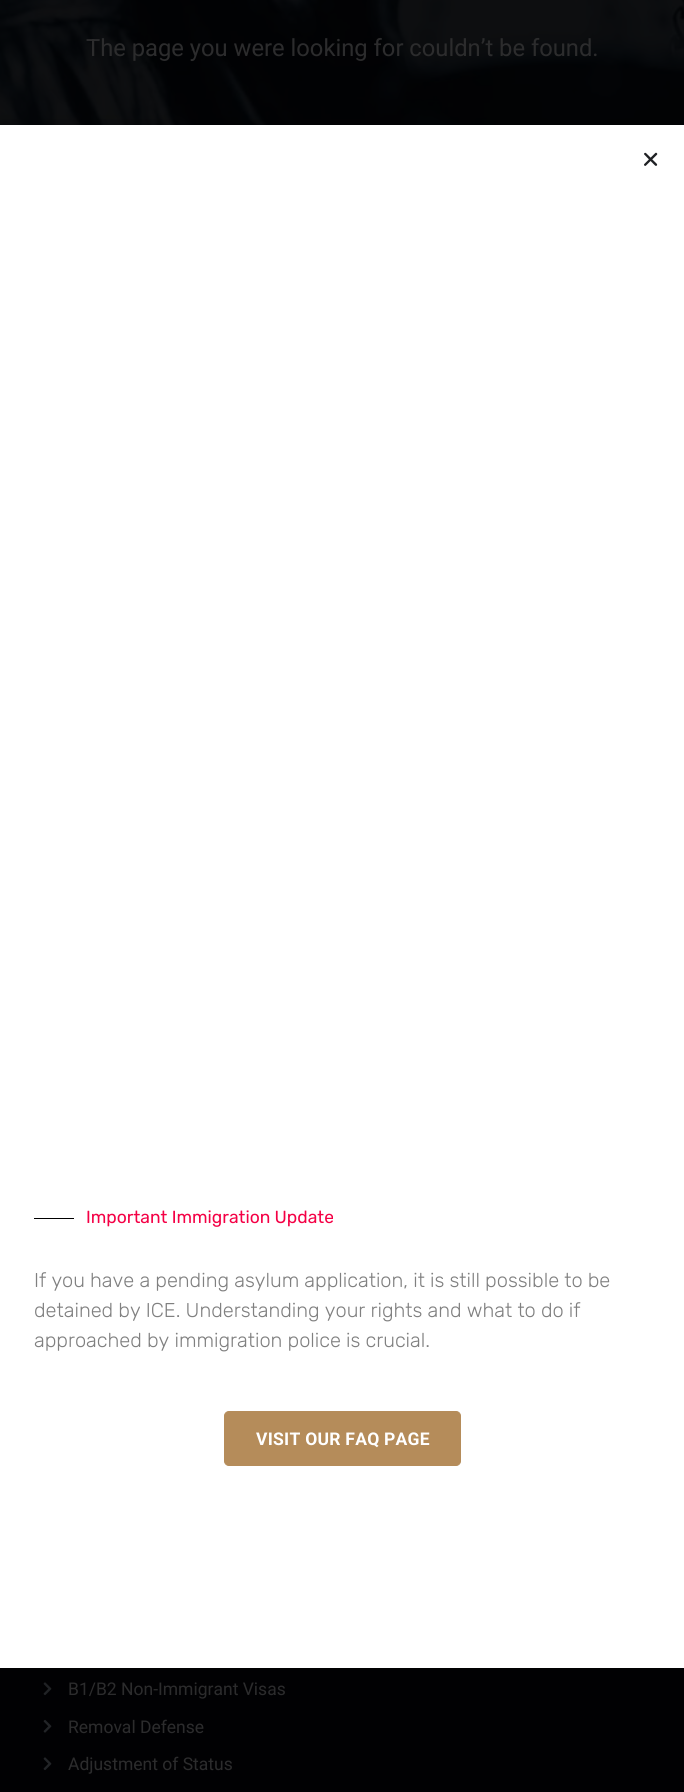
import math
import cairo



def draw_spaced(context, x, y, s, letter, word):
    context.move_to(x, y)
    for ch in s:
        context.show_text(ch)
        context.rel_move_to(letter + word * (ch == ' '), 0)


def rounded_rect(context, x, y, w, h, r):
    context.new_sub_path()
    for i, (u, v) in enumerate([(x + w - r, y + h - r), (x + r, y + h - r), (x + r, y + r), (x + w - r, y + r)]):
        context.arc(u, v, r, i * math.pi / 2, (i + 1) * math.pi / 2)
    context.close_path()


def draw_shadow(context, x, y, w, h, r, blur, alpha):
    context.push_group_with_content(cairo.Content.ALPHA)
    context.set_operator(cairo.Operator.SOURCE)
    for i in range(15, -16, -2):
        e = blur * i / 6
        if min(w, h) + 2 * e > 0:
            context.set_source_rgba(0, 0, 0, alpha * math.erfc((i - 1) / 8.5) / 2)
            rounded_rect(context, x - e, y - e, w + 2 * e, h + 2 * e, max(0, min(r + e + blur * .6, min(w, h) / 2 + e)))
            context.fill()
    context.mask(context.pop_group())


def draw_image(context, path, x, y, w, h):
    context.save()
    context.set_source_surface(cairo.ImageSurface.create_from_png(path), x, y)
    context.rectangle(x, y, w, h)
    context.fill()
    context.restore()


def draw(context):
    context.set_source_rgb(1, 1, 1)
    context.paint()
    draw_image(context, "images/1.png", 0, 0, 684, 125)
    context.set_source_rgb(1 / 255, 1 / 255, 3 / 255)
    context.rectangle(0, 1668, 684, 124)
    context.fill()
    draw_image(context, "images/3.png", 43, 1682, 9, 14)
    draw_image(context, "images/4.png", 43, 1719, 9, 14)
    context.set_source_rgb(0, 0, 0)
    draw_shadow(context, -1, 131, 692, 1550, 0, 14.5, 0.2)
    context.set_source_rgb(1, 1, 1)
    context.rectangle(0, 125, 684, 1543)
    context.fill()
    draw_image(context, "images/2.png", 644, 152, 14, 14)
    context.set_source_rgb(0, 0, 0)
    context.rectangle(34, 1218, 40, 1)
    context.fill()
    context.set_source_rgb(181 / 255, 140 / 255, 90 / 255)
    rounded_rect(context, 224.5, 1411.5, 236, 54, 4.5)
    context.fill_preserve()
    context.set_line_width(1)
    context.stroke()
    draw_image(context, "images/3.png", 43, 1757, 9, 14)
    context.select_font_face("Roboto")
    context.set_font_size(23.75)
    context.set_source_rgb(44 / 255, 44 / 255, 45 / 255)
    context.move_to(86, 56)
    context.show_text("The page you were looking for couldn’t be found.")
    context.select_font_face("Rubik")
    context.set_font_size(17.5)
    context.set_source_rgb(244 / 255, 0, 69 / 255)
    context.move_to(86, 1223)
    context.show_text("Important Immigration Update")
    context.select_font_face("Rubik Light")
    context.set_font_size(20)
    context.set_source_rgb(128 / 255, 128 / 255, 128 / 255)
    context.move_to(34, 1287)
    context.show_text("If you have a pending asylum application, it is still possible to be")
    context.move_to(34, 1317)
    context.show_text("detained by ICE. Understanding your rights and what to do if")
    context.move_to(34, 1347)
    context.show_text("approached by immigration police is crucial.")
    context.select_font_face("Roboto", cairo.FontSlant.NORMAL, cairo.FontWeight.BOLD)
    context.set_font_size(17.5)
    context.set_source_rgb(1, 1, 1)
    draw_spaced(context, 256, 1445, "VISIT OUR FAQ PAGE", 0.25, 0)
    context.select_font_face("Roboto")
    context.set_source_rgb(44 / 255, 44 / 255, 45 / 255)
    context.move_to(68, 1695)
    context.show_text("B1/B2 Non-Immigrant Visas")
    context.move_to(68, 1733)
    context.show_text("Removal Defense")
    context.move_to(68, 1770)
    context.show_text("Adjustment of Status")


surface = cairo.ImageSurface(cairo.Format.RGB24, 684, 1792)
context = cairo.Context(surface)
options = cairo.FontOptions()
options.set_hint_metrics(cairo.HintMetrics.OFF)
options.set_hint_style(cairo.HintStyle.NONE)
context.set_font_options(options)
context.set_miter_limit(4)
draw(context)
surface.write_to_png("out.png")
